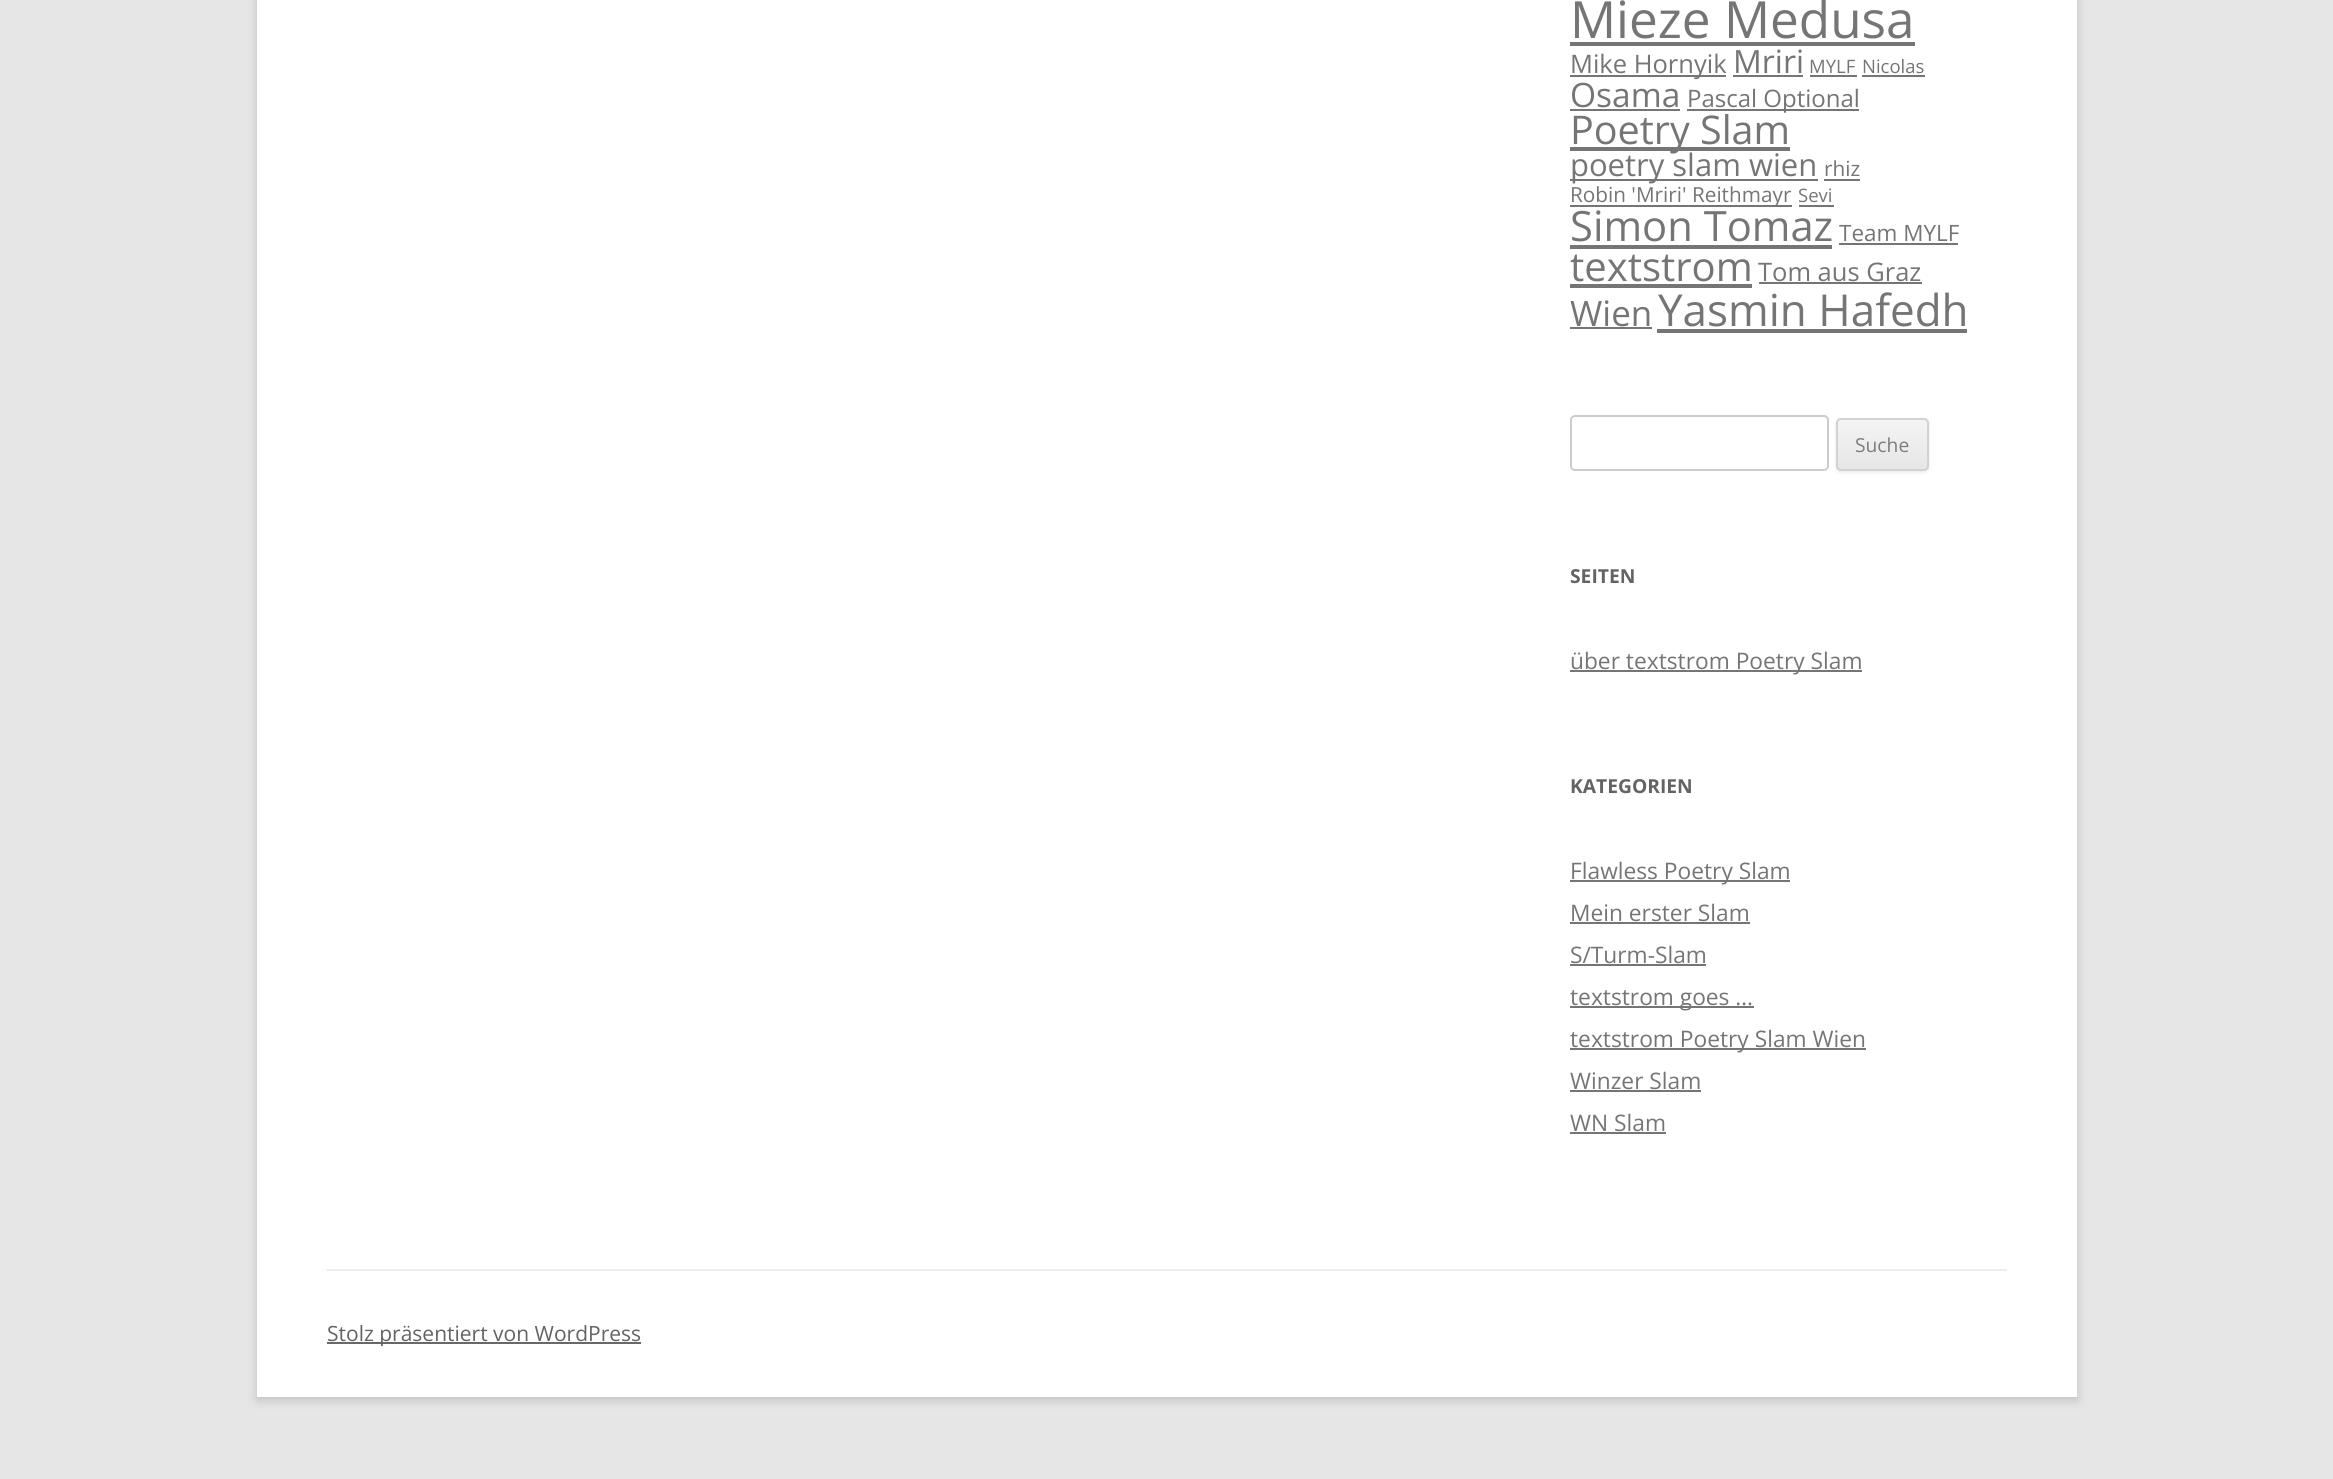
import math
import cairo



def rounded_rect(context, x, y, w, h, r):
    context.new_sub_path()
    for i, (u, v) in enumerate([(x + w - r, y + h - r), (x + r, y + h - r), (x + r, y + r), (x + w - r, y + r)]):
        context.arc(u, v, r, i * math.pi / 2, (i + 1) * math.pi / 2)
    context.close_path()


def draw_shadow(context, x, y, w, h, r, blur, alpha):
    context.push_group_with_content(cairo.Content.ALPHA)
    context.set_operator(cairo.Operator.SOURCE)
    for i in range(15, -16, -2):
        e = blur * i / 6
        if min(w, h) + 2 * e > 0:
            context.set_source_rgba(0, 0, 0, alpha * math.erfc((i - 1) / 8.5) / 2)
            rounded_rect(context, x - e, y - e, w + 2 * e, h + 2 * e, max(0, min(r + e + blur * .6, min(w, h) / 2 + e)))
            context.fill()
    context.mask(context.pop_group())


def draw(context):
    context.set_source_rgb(230 / 255, 230 / 255, 230 / 255)
    context.paint()
    context.set_source_rgb(100 / 255, 100 / 255, 100 / 255)
    draw_shadow(context, 257, -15, 1820, 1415, 0, 5, 0.3)
    context.set_source_rgb(1, 1, 1)
    context.rectangle(257, 0, 1820, 1397)
    context.fill()
    context.set_source_rgb(117 / 255, 117 / 255, 117 / 255)
    context.rectangle(1570, 42, 345, 4)
    context.fill()
    context.rectangle(1570, 75, 156, 2)
    context.fill()
    context.rectangle(1733, 75, 70, 2)
    context.fill()
    context.rectangle(1810, 75, 47, 2)
    context.fill()
    context.rectangle(1862, 75, 63, 2)
    context.fill()
    context.rectangle(1570, 109, 110, 2)
    context.fill()
    context.rectangle(1687, 109, 172, 2)
    context.fill()
    context.rectangle(1570, 147, 220, 4)
    context.fill()
    context.rectangle(1570, 179, 248, 2)
    context.fill()
    context.rectangle(1824, 179, 36, 2)
    context.fill()
    context.rectangle(1570, 205, 222, 2)
    context.fill()
    context.rectangle(1799, 205, 35, 2)
    context.fill()
    context.rectangle(1570, 245, 262, 4)
    context.fill()
    context.rectangle(1839, 243, 119, 2)
    context.fill()
    context.rectangle(1570, 284, 182, 4)
    context.fill()
    context.rectangle(1759, 282, 163, 2)
    context.fill()
    context.rectangle(1570, 327, 82, 2)
    context.fill()
    context.rectangle(1657, 329, 310, 4)
    context.fill()
    rounded_rect(context, 1571, 416, 257, 54, 4)
    context.set_source_rgb(204 / 255, 204 / 255, 204 / 255)
    context.stroke()
    context.set_source_rgb(64 / 255, 64 / 255, 64 / 255)
    draw_shadow(context, 1836, 420, 93, 53, 5, 2, 0.1)
    context.save()
    rounded_rect(context, 1836, 418, 93, 53, 5)
    context.clip()
    gradient = cairo.LinearGradient(1882, 420, 1882, 469)
    gradient.add_color_stop_rgba(0, 244 / 255, 244 / 255, 244 / 255, 1)
    gradient.add_color_stop_rgba(1, 230 / 255, 230 / 255, 230 / 255, 1)
    context.set_source(gradient)
    context.rectangle(1836, 420, 93, 49)
    context.fill()
    context.restore()
    rounded_rect(context, 1837, 419, 91, 51, 4)
    context.set_source_rgb(210 / 255, 210 / 255, 210 / 255)
    context.stroke()
    context.set_source_rgb(117 / 255, 117 / 255, 117 / 255)
    context.rectangle(1570, 670, 292, 2)
    context.fill()
    context.rectangle(1570, 880, 220, 2)
    context.fill()
    context.rectangle(1570, 922, 180, 2)
    context.fill()
    context.rectangle(1570, 964, 136, 2)
    context.fill()
    context.rectangle(1570, 1006, 184, 2)
    context.fill()
    context.rectangle(1570, 1048, 296, 2)
    context.fill()
    context.rectangle(1570, 1090, 131, 2)
    context.fill()
    context.rectangle(1570, 1132, 96, 2)
    context.fill()
    context.set_source_rgb(237 / 255, 237 / 255, 237 / 255)
    context.rectangle(327, 1269, 1680, 2)
    context.fill()
    context.set_source_rgb(104 / 255, 104 / 255, 104 / 255)
    context.rectangle(327, 1342, 314, 2)
    context.fill()
    context.select_font_face("Open Sans")
    context.set_font_size(51.25)
    context.set_source_rgb(117 / 255, 117 / 255, 117 / 255)
    context.move_to(1570, 38)
    context.show_text("Mieze Medusa")
    context.set_font_size(25.5)
    context.move_to(1570, 73)
    context.show_text("Mike Hornyik")
    context.set_font_size(32)
    context.move_to(1733, 73)
    context.show_text("Mriri")
    context.set_font_size(18.5)
    context.move_to(1809, 73)
    context.show_text("MYLF")
    context.move_to(1862, 73)
    context.show_text("Nicolas")
    context.set_font_size(33.5)
    context.move_to(1570, 107)
    context.show_text("Osama")
    context.set_font_size(24)
    context.move_to(1687, 107)
    context.show_text("Pascal Optional")
    context.set_font_size(39.5)
    context.move_to(1570, 144)
    context.show_text("Poetry Slam")
    context.set_font_size(31)
    context.move_to(1570, 176)
    context.show_text("poetry slam wien")
    context.set_font_size(20.75)
    context.move_to(1824, 176)
    context.show_text("rhiz")
    context.move_to(1570, 202)
    context.show_text("Robin 'Mriri' Reithmayr")
    context.set_font_size(18.5)
    context.move_to(1798, 202)
    context.show_text("Sevi")
    context.set_font_size(41.75)
    context.move_to(1570, 241)
    context.show_text("Simon Tomaz")
    context.set_font_size(22.5)
    context.move_to(1839, 241)
    context.show_text("Team MYLF")
    context.set_font_size(40)
    context.move_to(1570, 281)
    context.show_text("textstrom")
    context.set_font_size(25.5)
    context.move_to(1758, 281)
    context.show_text("Tom aus Graz")
    context.set_font_size(35)
    context.move_to(1570, 326)
    context.show_text("Wien")
    context.set_font_size(44)
    context.move_to(1658, 326)
    context.show_text("Yasmin Hafedh")
    context.set_font_size(19.25)
    context.set_source_rgb(124 / 255, 124 / 255, 124 / 255)
    context.move_to(1855, 452)
    context.show_text("Suche")
    context.select_font_face("Open Sans", cairo.FontSlant.NORMAL, cairo.FontWeight.BOLD)
    context.set_source_rgb(99 / 255, 99 / 255, 99 / 255)
    context.move_to(1570, 583)
    context.show_text("SEITEN")
    context.select_font_face("Open Sans")
    context.set_font_size(22.75)
    context.set_source_rgb(117 / 255, 117 / 255, 117 / 255)
    context.move_to(1570, 669)
    context.show_text("über textstrom Poetry Slam")
    context.select_font_face("Open Sans", cairo.FontSlant.NORMAL, cairo.FontWeight.BOLD)
    context.set_font_size(19.25)
    context.set_source_rgb(99 / 255, 99 / 255, 99 / 255)
    context.move_to(1570, 793)
    context.show_text("KATEGORIEN")
    context.select_font_face("Open Sans")
    context.set_font_size(22.75)
    context.set_source_rgb(117 / 255, 117 / 255, 117 / 255)
    context.move_to(1570, 879)
    context.show_text("Flawless Poetry Slam")
    context.move_to(1570, 921)
    context.show_text("Mein erster Slam")
    context.move_to(1570, 963)
    context.show_text("S/Turm-Slam")
    context.move_to(1570, 1005)
    context.show_text("textstrom goes …")
    context.move_to(1570, 1047)
    context.show_text("textstrom Poetry Slam Wien")
    context.move_to(1570, 1089)
    context.show_text("Winzer Slam")
    context.move_to(1570, 1131)
    context.show_text("WN Slam")
    context.set_font_size(21)
    context.set_source_rgb(99 / 255, 99 / 255, 99 / 255)
    context.move_to(327, 1341)
    context.show_text("Stolz präsentiert von WordPress")


surface = cairo.ImageSurface(cairo.Format.RGB24, 2333, 1479)
context = cairo.Context(surface)
options = cairo.FontOptions()
options.set_hint_metrics(cairo.HintMetrics.OFF)
options.set_hint_style(cairo.HintStyle.NONE)
context.set_font_options(options)
context.set_miter_limit(4)
draw(context)
surface.write_to_png("out.png")
